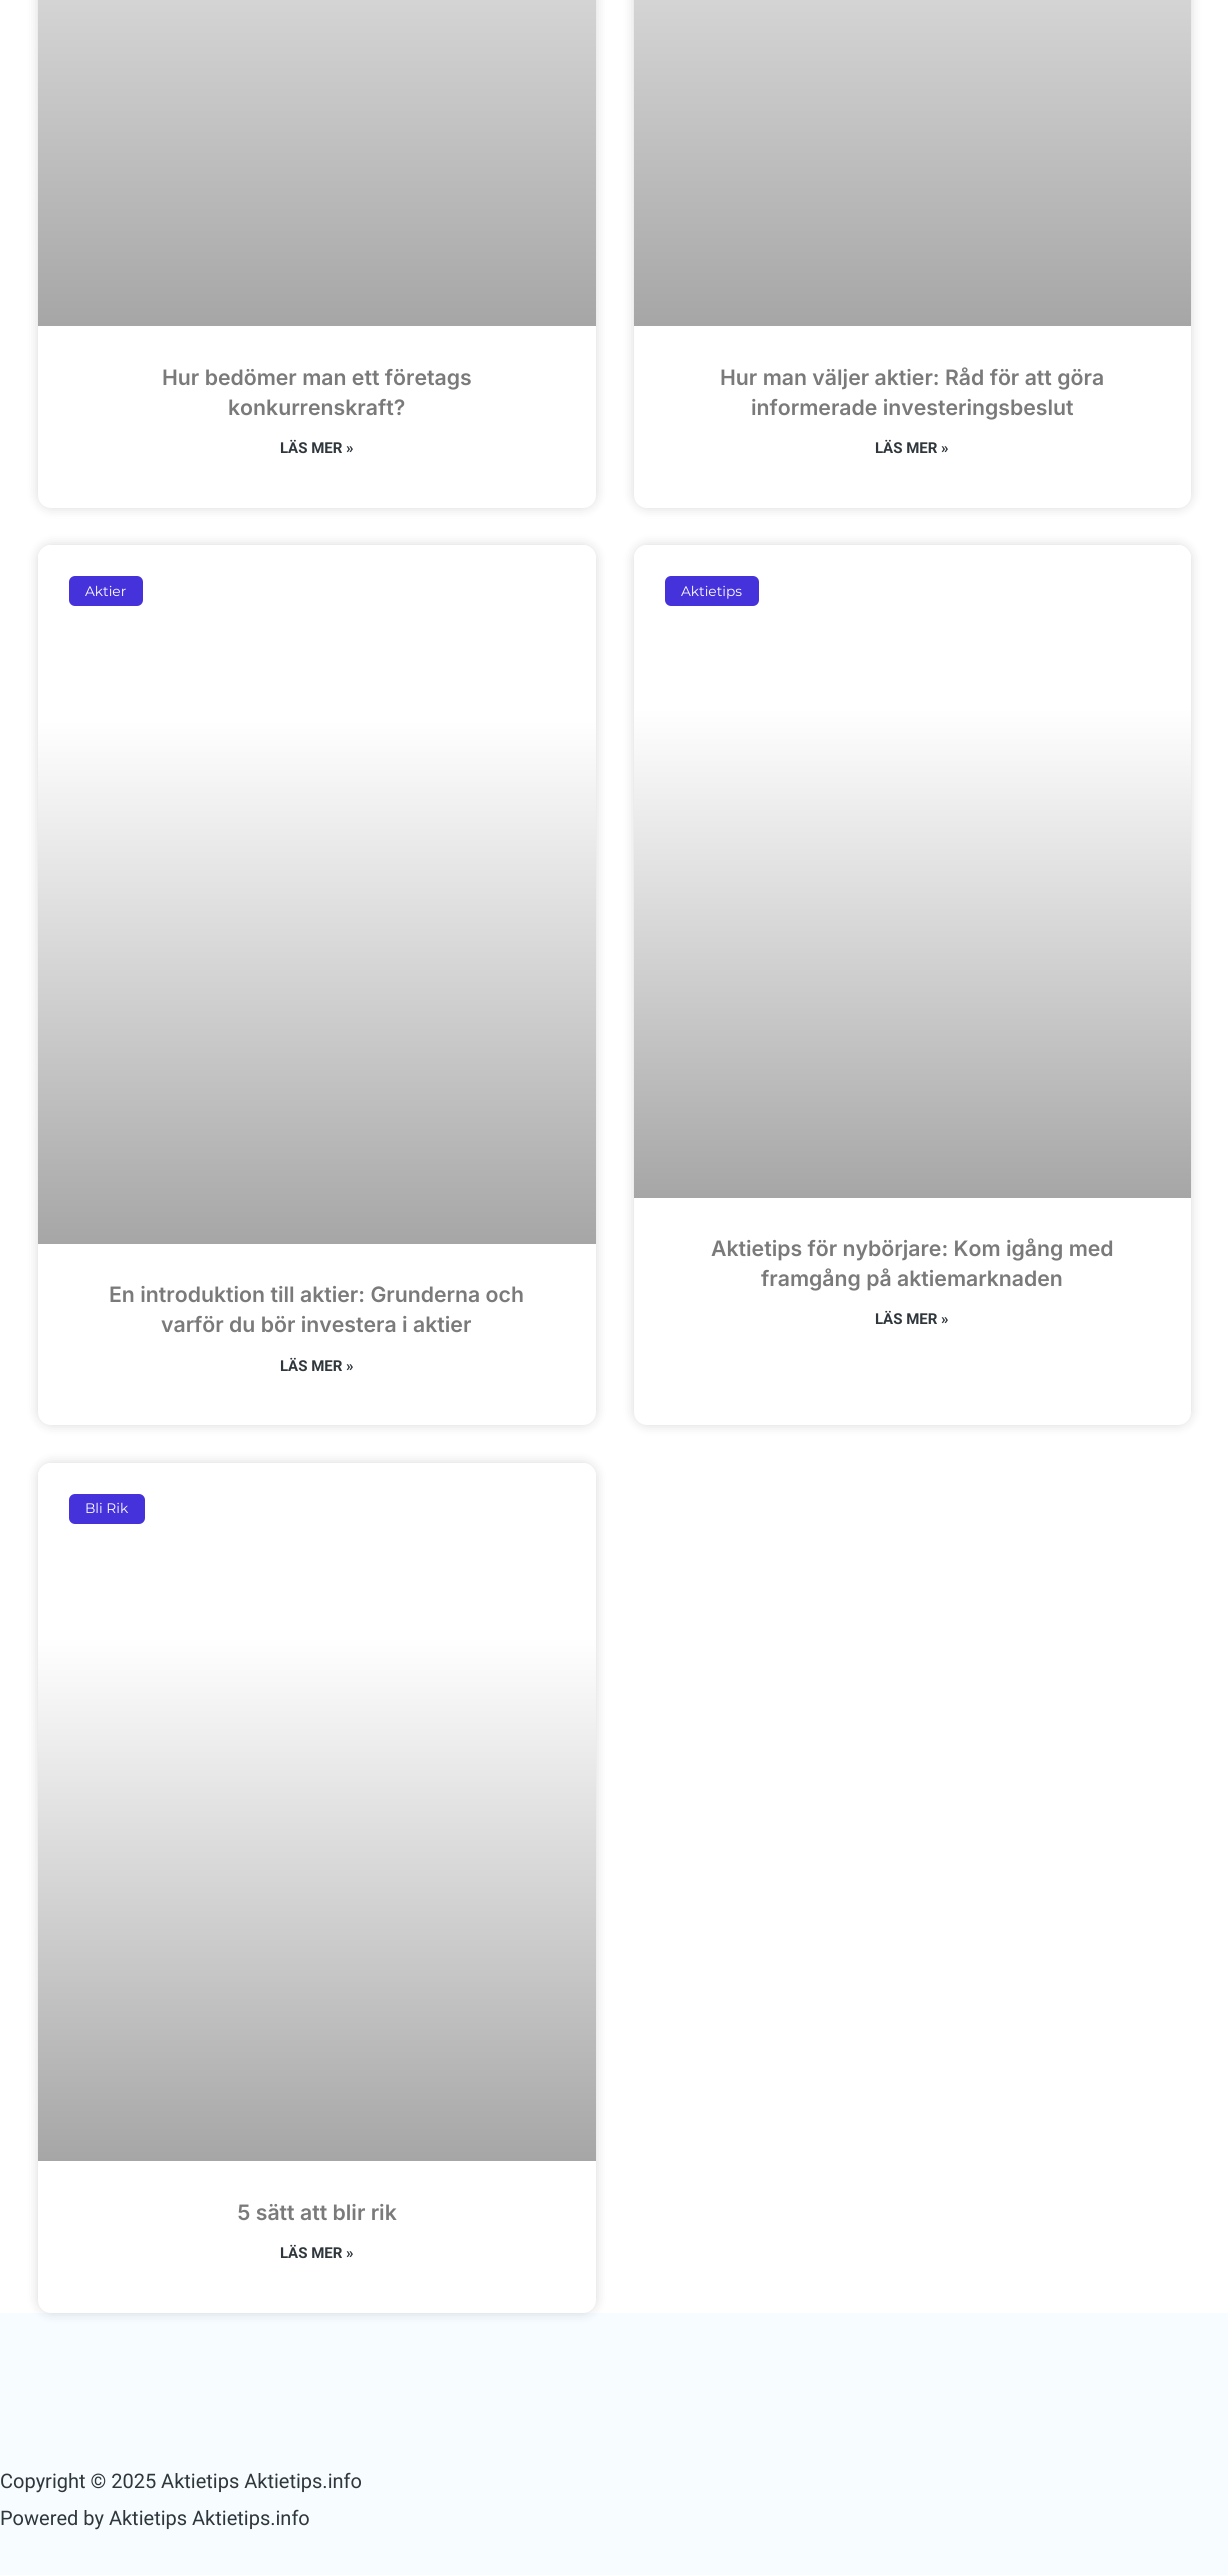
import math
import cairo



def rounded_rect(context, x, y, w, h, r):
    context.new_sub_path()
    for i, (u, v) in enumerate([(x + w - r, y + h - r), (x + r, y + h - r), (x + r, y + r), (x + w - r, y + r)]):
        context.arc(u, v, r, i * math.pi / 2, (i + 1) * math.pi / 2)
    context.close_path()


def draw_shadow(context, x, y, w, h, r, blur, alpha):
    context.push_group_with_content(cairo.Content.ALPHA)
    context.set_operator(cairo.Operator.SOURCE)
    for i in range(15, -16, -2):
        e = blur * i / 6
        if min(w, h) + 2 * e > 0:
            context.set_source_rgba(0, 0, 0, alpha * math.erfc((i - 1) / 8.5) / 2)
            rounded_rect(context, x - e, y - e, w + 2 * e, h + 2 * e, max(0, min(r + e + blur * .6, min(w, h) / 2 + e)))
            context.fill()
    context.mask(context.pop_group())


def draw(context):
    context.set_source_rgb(1, 1, 1)
    context.paint()
    context.set_source_rgb(0, 0, 0)
    draw_shadow(context, 38, -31, 558, 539, 13, 6, 0.15)
    context.set_source_rgb(1, 1, 1)
    rounded_rect(context, 38, -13, 558, 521, 13)
    context.fill()
    gradient = cairo.LinearGradient(317, 326, 317, -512)
    gradient.add_color_stop_rgba(0, 166 / 255, 166 / 255, 166 / 255, 1)
    gradient.add_color_stop_rgba(0.75, 1, 1, 1, 1)
    context.set_source(gradient)
    context.rectangle(38, 0, 558, 326)
    context.fill()
    context.set_source_rgb(0, 0, 0)
    draw_shadow(context, 634, -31, 557, 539, 13, 6, 0.15)
    context.set_source_rgb(1, 1, 1)
    rounded_rect(context, 634, -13, 557, 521, 13)
    context.fill()
    gradient = cairo.LinearGradient(913, 326, 913, -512)
    gradient.add_color_stop_rgba(0, 166 / 255, 166 / 255, 166 / 255, 1)
    gradient.add_color_stop_rgba(0.75, 1, 1, 1, 1)
    context.set_source(gradient)
    context.rectangle(634, 0, 557, 326)
    context.fill()
    context.set_source_rgb(0, 0, 0)
    draw_shadow(context, 38, 545, 558, 880, 13, 6, 0.15)
    context.set_source_rgb(1, 1, 1)
    rounded_rect(context, 38, 545, 558, 880, 13)
    context.fill()
    gradient = cairo.LinearGradient(317, 1244, 317, 545)
    gradient.add_color_stop_rgba(0, 166 / 255, 166 / 255, 166 / 255, 1)
    gradient.add_color_stop_rgba(0.75, 1, 1, 1, 1)
    context.set_source(gradient)
    context.new_path()
    context.move_to(51, 545)
    context.line_to(583, 545)
    context.curve_to(590, 545, 596, 551, 596, 558)
    context.line_to(596, 1244)
    context.line_to(38, 1244)
    context.line_to(38, 558)
    context.curve_to(38, 551, 44, 545, 51, 545)
    context.close_path()
    context.fill()
    context.set_source_rgb(70 / 255, 50 / 255, 218 / 255)
    rounded_rect(context, 69, 576, 74, 30, 6)
    context.fill()
    context.set_source_rgb(0, 0, 0)
    draw_shadow(context, 634, 545, 557, 880, 13, 6, 0.15)
    context.set_source_rgb(1, 1, 1)
    rounded_rect(context, 634, 545, 557, 880, 13)
    context.fill()
    gradient = cairo.LinearGradient(913, 1198, 913, 545)
    gradient.add_color_stop_rgba(0, 166 / 255, 166 / 255, 166 / 255, 1)
    gradient.add_color_stop_rgba(0.75, 1, 1, 1, 1)
    context.set_source(gradient)
    context.new_path()
    context.move_to(647, 545)
    context.line_to(1178, 545)
    context.curve_to(1185, 545, 1191, 551, 1191, 558)
    context.line_to(1191, 1198)
    context.line_to(634, 1198)
    context.line_to(634, 558)
    context.curve_to(634, 551, 640, 545, 647, 545)
    context.close_path()
    context.fill()
    context.set_source_rgb(70 / 255, 50 / 255, 218 / 255)
    rounded_rect(context, 665, 576, 94, 30, 6)
    context.fill()
    context.set_source_rgb(246 / 255, 252 / 255, 1)
    context.rectangle(0, 2313, 1228, 262)
    context.fill()
    context.set_source_rgb(0, 0, 0)
    draw_shadow(context, 38, 1463, 558, 850, 13, 6, 0.15)
    context.set_source_rgb(1, 1, 1)
    rounded_rect(context, 38, 1463, 558, 850, 13)
    context.fill()
    gradient = cairo.LinearGradient(317, 2161, 317, 1463)
    gradient.add_color_stop_rgba(0, 166 / 255, 166 / 255, 166 / 255, 1)
    gradient.add_color_stop_rgba(0.75, 1, 1, 1, 1)
    context.set_source(gradient)
    context.new_path()
    context.move_to(51, 1463)
    context.line_to(583, 1463)
    context.curve_to(590, 1463, 596, 1469, 596, 1476)
    context.line_to(596, 2161)
    context.line_to(38, 2161)
    context.line_to(38, 1476)
    context.curve_to(38, 1469, 44, 1463, 51, 1463)
    context.close_path()
    context.fill()
    context.set_source_rgb(70 / 255, 50 / 255, 218 / 255)
    rounded_rect(context, 69, 1494, 76, 30, 6)
    context.fill()
    context.select_font_face("Inter SemiBold")
    context.set_font_size(21.25)
    context.set_source_rgb(122 / 255, 122 / 255, 122 / 255)
    context.move_to(162, 385)
    context.show_text("Hur bedömer man ett företags")
    context.move_to(228, 415)
    context.show_text("konkurrenskraft?")
    context.select_font_face("Roboto", cairo.FontSlant.NORMAL, cairo.FontWeight.BOLD)
    context.set_font_size(15)
    context.set_source_rgb(47 / 255, 55 / 255, 61 / 255)
    context.move_to(280, 453)
    context.show_text("LÄS MER »")
    context.select_font_face("Inter SemiBold")
    context.set_font_size(21.25)
    context.set_source_rgb(122 / 255, 122 / 255, 122 / 255)
    context.move_to(720, 385)
    context.show_text("Hur man väljer aktier: Råd för att göra")
    context.move_to(751, 415)
    context.show_text("informerade investeringsbeslut")
    context.select_font_face("Roboto", cairo.FontSlant.NORMAL, cairo.FontWeight.BOLD)
    context.set_font_size(15)
    context.set_source_rgb(47 / 255, 55 / 255, 61 / 255)
    context.move_to(875, 453)
    context.show_text("LÄS MER »")
    context.select_font_face("Montserrat")
    context.set_font_size(13.75)
    context.set_source_rgb(1, 1, 1)
    context.move_to(85, 596)
    context.show_text("Aktier")
    context.select_font_face("Inter SemiBold")
    context.set_font_size(21.25)
    context.set_source_rgb(122 / 255, 122 / 255, 122 / 255)
    context.move_to(109, 1302)
    context.show_text("En introduktion till aktier: Grunderna och")
    context.move_to(161, 1332)
    context.show_text("varför du bör investera i aktier")
    context.select_font_face("Roboto", cairo.FontSlant.NORMAL, cairo.FontWeight.BOLD)
    context.set_font_size(15)
    context.set_source_rgb(47 / 255, 55 / 255, 61 / 255)
    context.move_to(280, 1371)
    context.show_text("LÄS MER »")
    context.select_font_face("Montserrat")
    context.set_font_size(13.75)
    context.set_source_rgb(1, 1, 1)
    context.move_to(681, 596)
    context.show_text("Aktietips")
    context.select_font_face("Inter SemiBold")
    context.set_font_size(21.25)
    context.set_source_rgb(122 / 255, 122 / 255, 122 / 255)
    context.move_to(711, 1256)
    context.show_text("Aktietips för nybörjare: Kom igång med")
    context.move_to(761, 1286)
    context.show_text("framgång på aktiemarknaden")
    context.select_font_face("Roboto", cairo.FontSlant.NORMAL, cairo.FontWeight.BOLD)
    context.set_font_size(15)
    context.set_source_rgb(47 / 255, 55 / 255, 61 / 255)
    context.move_to(875, 1324)
    context.show_text("LÄS MER »")
    context.select_font_face("Montserrat")
    context.set_font_size(13.75)
    context.set_source_rgb(1, 1, 1)
    context.move_to(85, 1513)
    context.show_text("Bli Rik")
    context.select_font_face("Inter SemiBold")
    context.set_font_size(21.25)
    context.set_source_rgb(122 / 255, 122 / 255, 122 / 255)
    context.move_to(237, 2220)
    context.show_text("5 sätt att blir rik")
    context.select_font_face("Roboto", cairo.FontSlant.NORMAL, cairo.FontWeight.BOLD)
    context.set_font_size(15)
    context.set_source_rgb(47 / 255, 55 / 255, 61 / 255)
    context.move_to(280, 2258)
    context.show_text("LÄS MER »")
    context.select_font_face("Roboto")
    context.set_font_size(20)
    context.move_to(0, 2488)
    context.show_text("Copyright © 2025 Aktietips Aktietips.info")
    context.move_to(0, 2525)
    context.show_text("Powered by Aktietips Aktietips.info")


surface = cairo.ImageSurface(cairo.Format.RGB24, 1228, 2575)
context = cairo.Context(surface)
options = cairo.FontOptions()
options.set_hint_metrics(cairo.HintMetrics.OFF)
options.set_hint_style(cairo.HintStyle.NONE)
context.set_font_options(options)
context.set_miter_limit(4)
draw(context)
surface.write_to_png("out.png")
